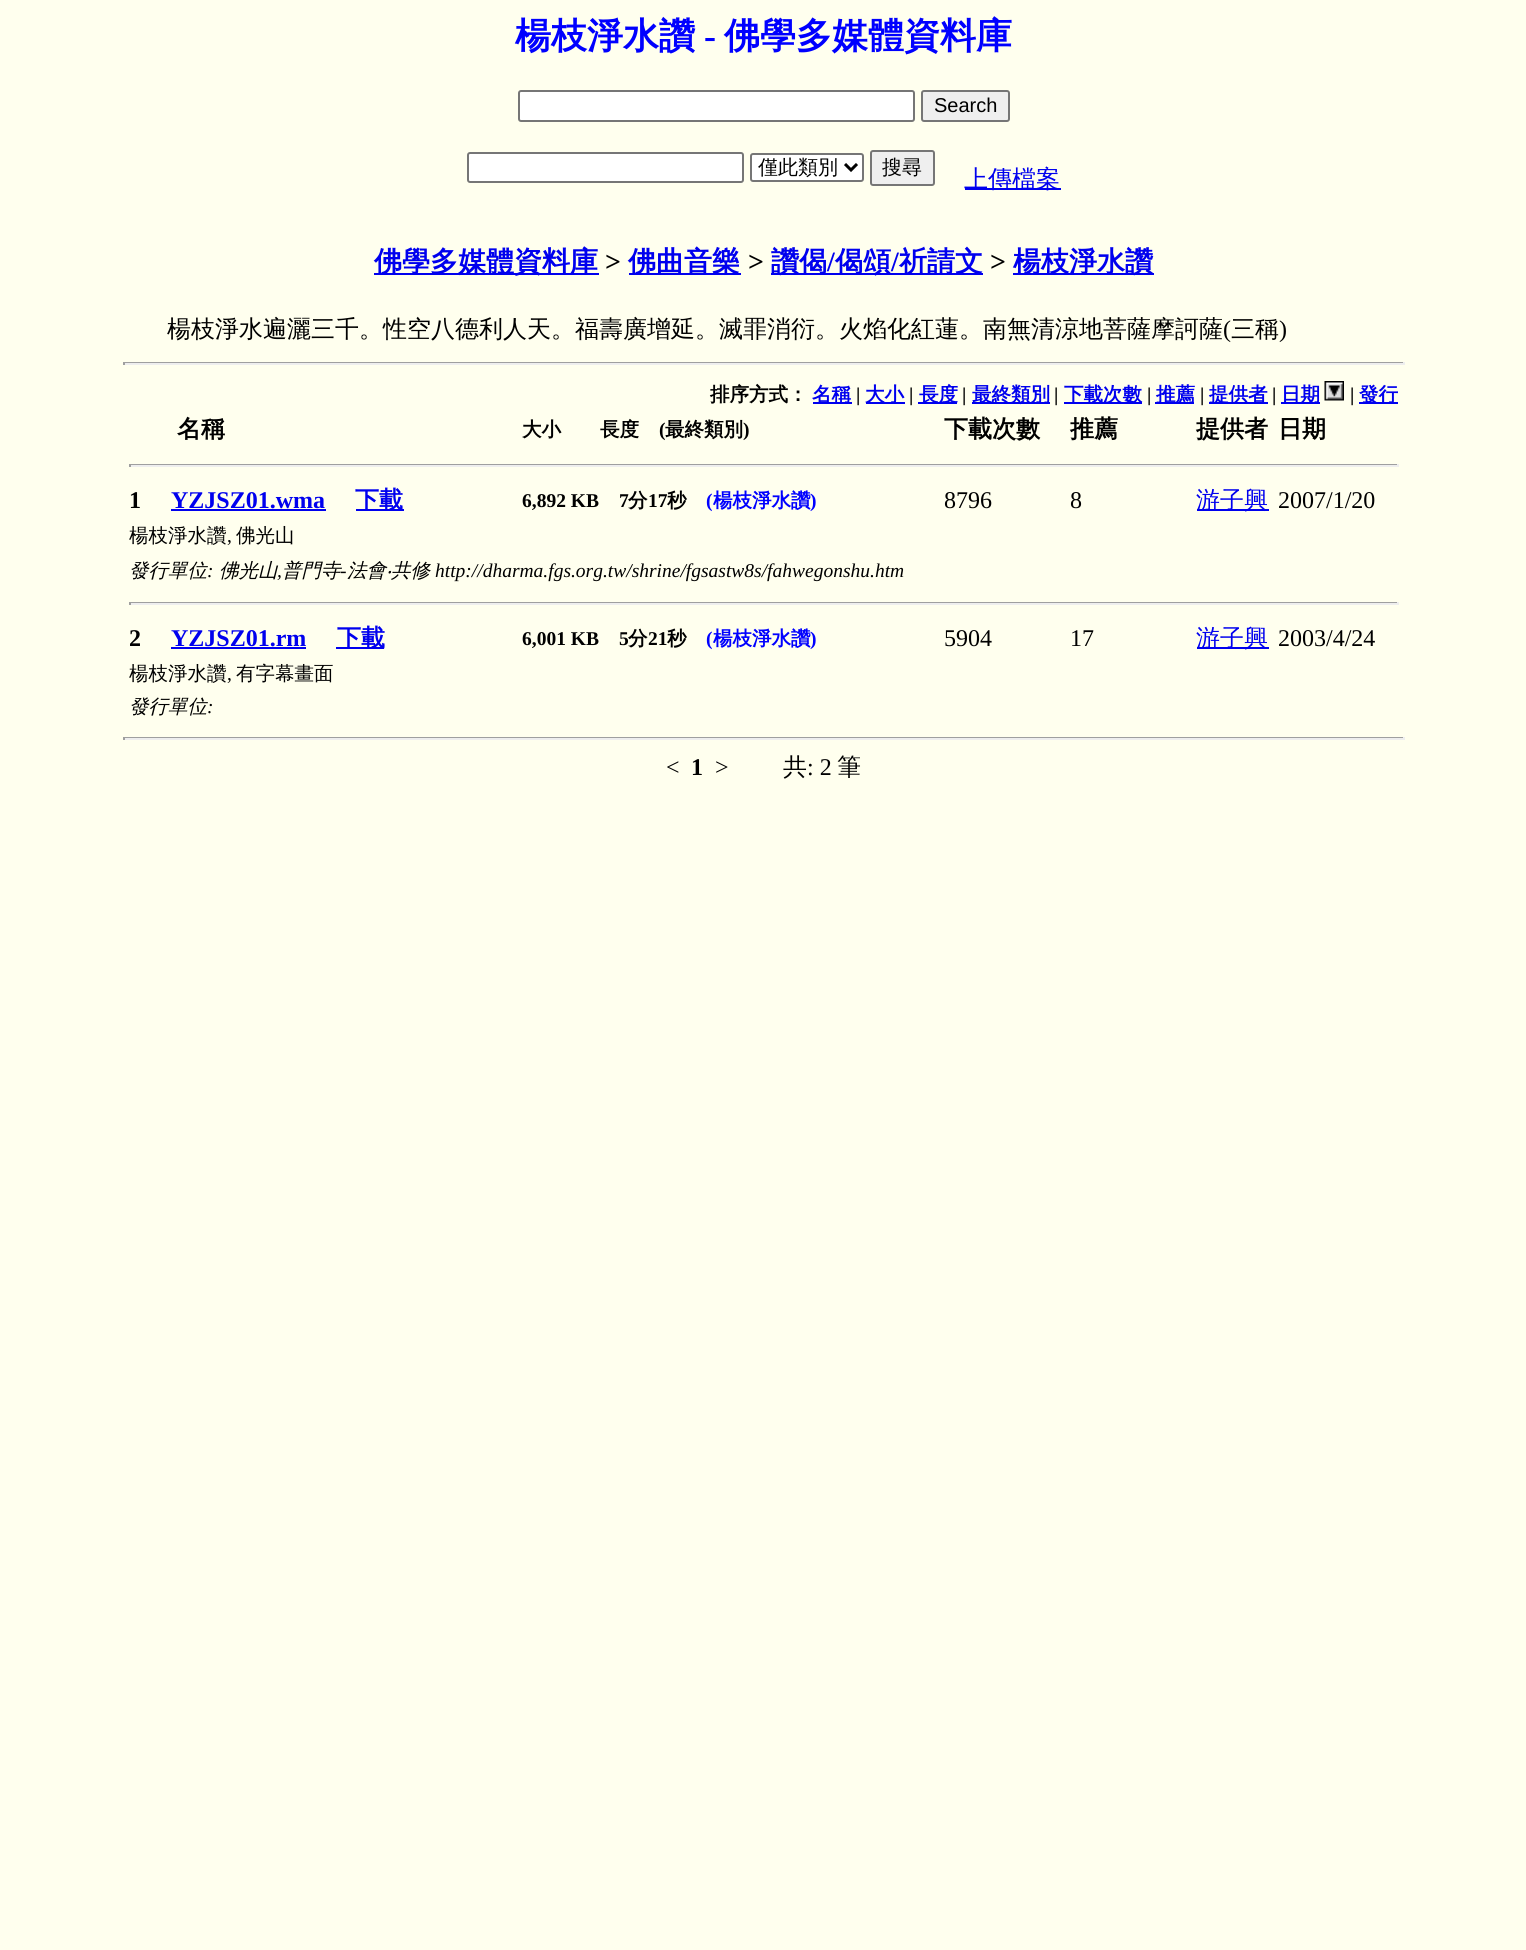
import math
import cairo



def rounded_rect(context, x, y, w, h, r):
    context.new_sub_path()
    for i, (u, v) in enumerate([(x + w - r, y + h - r), (x + r, y + h - r), (x + r, y + r), (x + w - r, y + r)]):
        context.arc(u, v, r, i * math.pi / 2, (i + 1) * math.pi / 2)
    context.close_path()


def draw_image(context, path, x, y, w, h):
    context.save()
    context.set_source_surface(cairo.ImageSurface.create_from_png(path), x, y)
    context.rectangle(x, y, w, h)
    context.fill()
    context.restore()


def draw(context):
    context.set_source_rgb(1, 1, 238 / 255)
    context.paint()
    context.set_source_rgb(1, 1, 1)
    rounded_rect(context, 519, 91, 395, 30, 2)
    context.fill_preserve()
    context.set_source_rgb(118 / 255, 118 / 255, 118 / 255)
    context.stroke()
    context.set_source_rgb(239 / 255, 239 / 255, 239 / 255)
    rounded_rect(context, 922, 91, 87, 30, 2)
    context.fill_preserve()
    context.set_source_rgb(118 / 255, 118 / 255, 118 / 255)
    context.stroke()
    context.set_source_rgb(1, 1, 1)
    rounded_rect(context, 468, 153, 275, 29, 2)
    context.fill_preserve()
    context.set_source_rgb(118 / 255, 118 / 255, 118 / 255)
    context.stroke()
    context.set_source_rgb(1, 1, 1)
    rounded_rect(context, 751, 154, 112, 27, 2)
    context.fill_preserve()
    context.set_source_rgb(118 / 255, 118 / 255, 118 / 255)
    context.stroke()
    context.new_path()
    context.move_to(845, 164)
    context.line_to(851, 170)
    context.line_to(857, 164)
    context.set_source_rgb(0, 0, 0)
    context.set_line_width(3)
    context.stroke()
    context.set_source_rgb(239 / 255, 239 / 255, 239 / 255)
    rounded_rect(context, 871, 151, 63, 34, 2)
    context.fill_preserve()
    context.set_source_rgb(118 / 255, 118 / 255, 118 / 255)
    context.set_line_width(2)
    context.stroke()
    context.set_source_rgb(0, 0, 238 / 255)
    context.rectangle(965, 188, 96, 2)
    context.fill()
    context.rectangle(374, 273, 225, 2)
    context.fill()
    context.rectangle(629, 273, 112, 2)
    context.fill()
    context.rectangle(771, 273, 212, 2)
    context.fill()
    context.rectangle(1013, 273, 141, 2)
    context.fill()
    context.set_source_rgb(159 / 255, 159 / 255, 159 / 255)
    context.rectangle(123, 362, 1281, 1)
    context.fill()
    context.set_source_rgb(238 / 255, 238 / 255, 238 / 255)
    context.rectangle(1403, 362, 2, 3)
    context.fill()
    context.rectangle(123, 363, 1281, 2)
    context.fill()
    context.set_source_rgb(159 / 255, 159 / 255, 159 / 255)
    context.rectangle(123, 362, 2, 3)
    context.fill()
    context.set_source_rgb(0, 0, 238 / 255)
    context.rectangle(813, 402, 39, 2)
    context.fill()
    context.rectangle(866, 402, 39, 2)
    context.fill()
    context.rectangle(918, 402, 39, 2)
    context.fill()
    context.rectangle(972, 402, 78, 2)
    context.fill()
    context.rectangle(1064, 402, 78, 2)
    context.fill()
    context.rectangle(1155, 402, 39, 2)
    context.fill()
    context.rectangle(1209, 402, 59, 2)
    context.fill()
    context.rectangle(1281, 402, 39, 2)
    context.fill()
    draw_image(context, "images/1.png", 1324, 381, 20, 20)
    context.rectangle(1359, 402, 39, 2)
    context.fill()
    context.set_source_rgb(159 / 255, 159 / 255, 159 / 255)
    context.rectangle(129, 464, 1269, 1)
    context.fill()
    context.set_source_rgb(238 / 255, 238 / 255, 238 / 255)
    context.rectangle(1397, 464, 2, 3)
    context.fill()
    context.rectangle(129, 465, 1269, 2)
    context.fill()
    context.set_source_rgb(159 / 255, 159 / 255, 159 / 255)
    context.rectangle(129, 464, 2, 3)
    context.fill()
    context.set_source_rgb(0, 0, 238 / 255)
    context.rectangle(171, 509, 155, 2)
    context.fill()
    context.rectangle(356, 509, 48, 2)
    context.fill()
    context.rectangle(1197, 509, 72, 2)
    context.fill()
    context.set_source_rgb(159 / 255, 159 / 255, 159 / 255)
    context.rectangle(129, 602, 1269, 1)
    context.fill()
    context.set_source_rgb(238 / 255, 238 / 255, 238 / 255)
    context.rectangle(1397, 602, 2, 3)
    context.fill()
    context.rectangle(129, 603, 1269, 2)
    context.fill()
    context.set_source_rgb(159 / 255, 159 / 255, 159 / 255)
    context.rectangle(129, 602, 2, 3)
    context.fill()
    context.set_source_rgb(0, 0, 238 / 255)
    context.rectangle(171, 647, 135, 2)
    context.fill()
    context.rectangle(336, 647, 48, 2)
    context.fill()
    context.rectangle(1197, 647, 72, 2)
    context.fill()
    context.set_source_rgb(159 / 255, 159 / 255, 159 / 255)
    context.rectangle(123, 737, 1281, 1)
    context.fill()
    context.set_source_rgb(238 / 255, 238 / 255, 238 / 255)
    context.rectangle(1403, 737, 2, 3)
    context.fill()
    context.rectangle(123, 738, 1281, 2)
    context.fill()
    context.set_source_rgb(159 / 255, 159 / 255, 159 / 255)
    context.rectangle(123, 737, 2, 3)
    context.fill()
    context.select_font_face("WenQuanYi Zen Hei", cairo.FontSlant.NORMAL, cairo.FontWeight.BOLD)
    context.set_font_size(36)
    context.set_source_rgb(0, 0, 1)
    context.move_to(515, 48)
    context.show_text("楊枝淨水讚")
    context.select_font_face("Liberation Serif", cairo.FontSlant.NORMAL, cairo.FontWeight.BOLD)
    context.move_to(704, 48)
    context.show_text("-")
    context.select_font_face("WenQuanYi Zen Hei", cairo.FontSlant.NORMAL, cairo.FontWeight.BOLD)
    context.move_to(724, 48)
    context.show_text("佛學多媒體資料庫")
    context.select_font_face("Liberation Sans")
    context.set_font_size(20)
    context.set_source_rgb(0, 0, 0)
    context.move_to(934, 112)
    context.show_text("Search")
    context.select_font_face("WenQuanYi Zen Hei Medium")
    context.move_to(758, 174)
    context.show_text("僅此類別")
    context.move_to(882, 174)
    context.show_text("搜尋")
    context.set_font_size(24)
    context.set_source_rgb(0, 0, 238 / 255)
    context.move_to(964, 187)
    context.show_text("上傳檔案")
    context.select_font_face("WenQuanYi Zen Hei", cairo.FontSlant.NORMAL, cairo.FontWeight.BOLD)
    context.set_font_size(28)
    context.move_to(374, 271)
    context.show_text("佛學多媒體資料庫")
    context.select_font_face("Liberation Serif", cairo.FontSlant.NORMAL, cairo.FontWeight.BOLD)
    context.set_source_rgb(0, 0, 0)
    context.move_to(605, 271)
    context.show_text(">")
    context.select_font_face("WenQuanYi Zen Hei", cairo.FontSlant.NORMAL, cairo.FontWeight.BOLD)
    context.set_source_rgb(0, 0, 238 / 255)
    context.move_to(628, 271)
    context.show_text("佛曲音樂")
    context.select_font_face("Liberation Serif", cairo.FontSlant.NORMAL, cairo.FontWeight.BOLD)
    context.set_source_rgb(0, 0, 0)
    context.move_to(748, 271)
    context.show_text(">")
    context.select_font_face("WenQuanYi Zen Hei", cairo.FontSlant.NORMAL, cairo.FontWeight.BOLD)
    context.set_source_rgb(0, 0, 238 / 255)
    context.move_to(771, 271)
    context.show_text("讚偈")
    context.select_font_face("Liberation Serif", cairo.FontSlant.NORMAL, cairo.FontWeight.BOLD)
    context.move_to(827, 271)
    context.show_text("/")
    context.select_font_face("WenQuanYi Zen Hei", cairo.FontSlant.NORMAL, cairo.FontWeight.BOLD)
    context.move_to(835, 271)
    context.show_text("偈頌")
    context.select_font_face("Liberation Serif", cairo.FontSlant.NORMAL, cairo.FontWeight.BOLD)
    context.move_to(891, 271)
    context.show_text("/")
    context.select_font_face("WenQuanYi Zen Hei", cairo.FontSlant.NORMAL, cairo.FontWeight.BOLD)
    context.move_to(899, 271)
    context.show_text("祈請文")
    context.select_font_face("Liberation Serif", cairo.FontSlant.NORMAL, cairo.FontWeight.BOLD)
    context.set_source_rgb(0, 0, 0)
    context.move_to(990, 271)
    context.show_text(">")
    context.select_font_face("WenQuanYi Zen Hei", cairo.FontSlant.NORMAL, cairo.FontWeight.BOLD)
    context.set_source_rgb(0, 0, 238 / 255)
    context.move_to(1013, 271)
    context.show_text("楊枝淨水讚")
    context.select_font_face("WenQuanYi Zen Hei Medium")
    context.set_font_size(24)
    context.set_source_rgb(0, 0, 0)
    context.move_to(167, 337)
    context.show_text("楊枝淨水遍灑三千。性空八德利人天。福壽廣增延。滅罪消衍。火焰化紅蓮。南無清涼地菩薩摩訶薩")
    context.select_font_face("Liberation Serif")
    context.move_to(1223, 337)
    context.show_text("(")
    context.select_font_face("WenQuanYi Zen Hei Medium")
    context.move_to(1231, 337)
    context.show_text("三稱")
    context.select_font_face("Liberation Serif")
    context.move_to(1279, 337)
    context.show_text(")")
    context.select_font_face("WenQuanYi Zen Hei", cairo.FontSlant.NORMAL, cairo.FontWeight.BOLD)
    context.set_font_size(19.5)
    context.move_to(710, 401)
    context.show_text("排序方式：")
    context.set_source_rgb(0, 0, 238 / 255)
    context.move_to(812, 401)
    context.show_text("名稱")
    context.select_font_face("Liberation Serif", cairo.FontSlant.NORMAL, cairo.FontWeight.BOLD)
    context.set_source_rgb(0, 0, 0)
    context.move_to(856, 401)
    context.show_text("|")
    context.select_font_face("WenQuanYi Zen Hei", cairo.FontSlant.NORMAL, cairo.FontWeight.BOLD)
    context.set_source_rgb(0, 0, 238 / 255)
    context.move_to(865, 401)
    context.show_text("大小")
    context.select_font_face("Liberation Serif", cairo.FontSlant.NORMAL, cairo.FontWeight.BOLD)
    context.set_source_rgb(0, 0, 0)
    context.move_to(909, 401)
    context.show_text("|")
    context.select_font_face("WenQuanYi Zen Hei", cairo.FontSlant.NORMAL, cairo.FontWeight.BOLD)
    context.set_source_rgb(0, 0, 238 / 255)
    context.move_to(919, 401)
    context.show_text("長度")
    context.select_font_face("Liberation Serif", cairo.FontSlant.NORMAL, cairo.FontWeight.BOLD)
    context.set_source_rgb(0, 0, 0)
    context.move_to(962, 401)
    context.show_text("|")
    context.select_font_face("WenQuanYi Zen Hei", cairo.FontSlant.NORMAL, cairo.FontWeight.BOLD)
    context.set_source_rgb(0, 0, 238 / 255)
    context.move_to(972, 401)
    context.show_text("最終類別")
    context.select_font_face("Liberation Serif", cairo.FontSlant.NORMAL, cairo.FontWeight.BOLD)
    context.set_source_rgb(0, 0, 0)
    context.move_to(1054, 401)
    context.show_text("|")
    context.select_font_face("WenQuanYi Zen Hei", cairo.FontSlant.NORMAL, cairo.FontWeight.BOLD)
    context.set_source_rgb(0, 0, 238 / 255)
    context.move_to(1064, 401)
    context.show_text("下載次數")
    context.select_font_face("Liberation Serif", cairo.FontSlant.NORMAL, cairo.FontWeight.BOLD)
    context.set_source_rgb(0, 0, 0)
    context.move_to(1147, 401)
    context.show_text("|")
    context.select_font_face("WenQuanYi Zen Hei", cairo.FontSlant.NORMAL, cairo.FontWeight.BOLD)
    context.set_source_rgb(0, 0, 238 / 255)
    context.move_to(1156, 401)
    context.show_text("推薦")
    context.select_font_face("Liberation Serif", cairo.FontSlant.NORMAL, cairo.FontWeight.BOLD)
    context.set_source_rgb(0, 0, 0)
    context.move_to(1200, 401)
    context.show_text("|")
    context.select_font_face("WenQuanYi Zen Hei", cairo.FontSlant.NORMAL, cairo.FontWeight.BOLD)
    context.set_source_rgb(0, 0, 238 / 255)
    context.move_to(1209, 401)
    context.show_text("提供者")
    context.select_font_face("Liberation Serif", cairo.FontSlant.NORMAL, cairo.FontWeight.BOLD)
    context.set_source_rgb(0, 0, 0)
    context.move_to(1272, 401)
    context.show_text("|")
    context.select_font_face("WenQuanYi Zen Hei", cairo.FontSlant.NORMAL, cairo.FontWeight.BOLD)
    context.set_source_rgb(0, 0, 238 / 255)
    context.move_to(1281, 401)
    context.show_text("日期")
    context.select_font_face("Liberation Serif", cairo.FontSlant.NORMAL, cairo.FontWeight.BOLD)
    context.set_source_rgb(0, 0, 0)
    context.move_to(1350, 401)
    context.show_text("|")
    context.select_font_face("WenQuanYi Zen Hei", cairo.FontSlant.NORMAL, cairo.FontWeight.BOLD)
    context.set_source_rgb(0, 0, 238 / 255)
    context.move_to(1359, 401)
    context.show_text("發行")
    context.set_font_size(24)
    context.set_source_rgb(0, 0, 0)
    context.move_to(177, 437)
    context.show_text("名稱")
    context.set_font_size(19.5)
    context.move_to(522, 436)
    context.show_text("大小　　長度")
    context.select_font_face("Liberation Serif", cairo.FontSlant.NORMAL, cairo.FontWeight.BOLD)
    context.move_to(659, 436)
    context.show_text("(")
    context.select_font_face("WenQuanYi Zen Hei", cairo.FontSlant.NORMAL, cairo.FontWeight.BOLD)
    context.move_to(665, 436)
    context.show_text("最終類別")
    context.select_font_face("Liberation Serif", cairo.FontSlant.NORMAL, cairo.FontWeight.BOLD)
    context.move_to(743, 436)
    context.show_text(")")
    context.select_font_face("WenQuanYi Zen Hei", cairo.FontSlant.NORMAL, cairo.FontWeight.BOLD)
    context.set_font_size(24)
    context.move_to(944, 437)
    context.show_text("下載次數")
    context.move_to(1070, 437)
    context.show_text("推薦")
    context.move_to(1196, 437)
    context.show_text("提供者")
    context.move_to(1278, 437)
    context.show_text("日期")
    context.select_font_face("Liberation Serif", cairo.FontSlant.NORMAL, cairo.FontWeight.BOLD)
    context.move_to(129, 508)
    context.show_text("1")
    context.set_source_rgb(0, 0, 238 / 255)
    context.move_to(171, 508)
    context.show_text("YZJSZ01.wma")
    context.select_font_face("WenQuanYi Zen Hei", cairo.FontSlant.NORMAL, cairo.FontWeight.BOLD)
    context.move_to(355, 508)
    context.show_text("下載")
    context.select_font_face("Liberation Serif", cairo.FontSlant.NORMAL, cairo.FontWeight.BOLD)
    context.set_font_size(19.5)
    context.set_source_rgb(0, 0, 0)
    context.move_to(522, 507)
    context.show_text("6,892 KB")
    context.move_to(619, 507)
    context.show_text("7")
    context.select_font_face("WenQuanYi Zen Hei", cairo.FontSlant.NORMAL, cairo.FontWeight.BOLD)
    context.move_to(628, 507)
    context.show_text("分")
    context.select_font_face("Liberation Serif", cairo.FontSlant.NORMAL, cairo.FontWeight.BOLD)
    context.move_to(648, 507)
    context.show_text("17")
    context.select_font_face("WenQuanYi Zen Hei", cairo.FontSlant.NORMAL, cairo.FontWeight.BOLD)
    context.move_to(667, 507)
    context.show_text("秒")
    context.select_font_face("Liberation Serif", cairo.FontSlant.NORMAL, cairo.FontWeight.BOLD)
    context.set_source_rgb(0, 0, 1)
    context.move_to(706, 507)
    context.show_text("(")
    context.select_font_face("WenQuanYi Zen Hei", cairo.FontSlant.NORMAL, cairo.FontWeight.BOLD)
    context.move_to(713, 507)
    context.show_text("楊枝淨水讚")
    context.select_font_face("Liberation Serif", cairo.FontSlant.NORMAL, cairo.FontWeight.BOLD)
    context.move_to(810, 507)
    context.show_text(")")
    context.select_font_face("Liberation Serif")
    context.set_font_size(24)
    context.set_source_rgb(0, 0, 0)
    context.move_to(944, 508)
    context.show_text("8796")
    context.move_to(1070, 508)
    context.show_text("8")
    context.select_font_face("WenQuanYi Zen Hei Medium")
    context.set_source_rgb(0, 0, 238 / 255)
    context.move_to(1196, 508)
    context.show_text("游子興")
    context.select_font_face("Liberation Serif")
    context.set_source_rgb(0, 0, 0)
    context.move_to(1278, 508)
    context.show_text("2007/1/20")
    context.select_font_face("WenQuanYi Zen Hei Medium")
    context.set_font_size(19.5)
    context.move_to(129, 542)
    context.show_text("楊枝淨水讚")
    context.select_font_face("Liberation Serif")
    context.move_to(227, 542)
    context.show_text(",")
    context.select_font_face("WenQuanYi Zen Hei Medium")
    context.move_to(236, 542)
    context.show_text("佛光山")
    context.select_font_face("WenQuanYi Zen Hei Medium", cairo.FontSlant.ITALIC)
    context.move_to(129, 577)
    context.show_text("發行單位")
    context.select_font_face("Liberation Serif", cairo.FontSlant.ITALIC)
    context.move_to(207, 577)
    context.show_text(":")
    context.select_font_face("WenQuanYi Zen Hei Medium", cairo.FontSlant.ITALIC)
    context.move_to(219, 577)
    context.show_text("佛光山")
    context.move_to(282, 577)
    context.show_text("普門寺")
    context.select_font_face("Liberation Serif", cairo.FontSlant.ITALIC)
    context.move_to(340, 577)
    context.show_text("-")
    context.select_font_face("WenQuanYi Zen Hei Medium", cairo.FontSlant.ITALIC)
    context.move_to(347, 577)
    context.show_text("法會")
    context.select_font_face("Noto Sans", cairo.FontSlant.ITALIC)
    context.move_to(386, 577)
    context.show_text("‧")
    context.select_font_face("WenQuanYi Zen Hei Medium", cairo.FontSlant.ITALIC)
    context.move_to(391, 577)
    context.show_text("共修")
    context.select_font_face("Liberation Serif", cairo.FontSlant.ITALIC)
    context.move_to(435, 577)
    context.show_text("http://dharma.fgs.org.tw/shrine/fgsastw8s/fahwegonshu.htm")
    context.move_to(277, 577)
    context.show_text(",")
    context.select_font_face("Liberation Serif", cairo.FontSlant.NORMAL, cairo.FontWeight.BOLD)
    context.set_font_size(24)
    context.move_to(129, 646)
    context.show_text("2")
    context.set_source_rgb(0, 0, 238 / 255)
    context.move_to(171, 646)
    context.show_text("YZJSZ01.rm")
    context.select_font_face("WenQuanYi Zen Hei", cairo.FontSlant.NORMAL, cairo.FontWeight.BOLD)
    context.move_to(337, 646)
    context.show_text("下載")
    context.select_font_face("Liberation Serif", cairo.FontSlant.NORMAL, cairo.FontWeight.BOLD)
    context.set_font_size(19.5)
    context.set_source_rgb(0, 0, 0)
    context.move_to(522, 645)
    context.show_text("6,001 KB")
    context.move_to(619, 645)
    context.show_text("5")
    context.select_font_face("WenQuanYi Zen Hei", cairo.FontSlant.NORMAL, cairo.FontWeight.BOLD)
    context.move_to(628, 645)
    context.show_text("分")
    context.select_font_face("Liberation Serif", cairo.FontSlant.NORMAL, cairo.FontWeight.BOLD)
    context.move_to(648, 645)
    context.show_text("21")
    context.select_font_face("WenQuanYi Zen Hei", cairo.FontSlant.NORMAL, cairo.FontWeight.BOLD)
    context.move_to(667, 645)
    context.show_text("秒")
    context.select_font_face("Liberation Serif", cairo.FontSlant.NORMAL, cairo.FontWeight.BOLD)
    context.set_source_rgb(0, 0, 1)
    context.move_to(706, 645)
    context.show_text("(")
    context.select_font_face("WenQuanYi Zen Hei", cairo.FontSlant.NORMAL, cairo.FontWeight.BOLD)
    context.move_to(713, 645)
    context.show_text("楊枝淨水讚")
    context.select_font_face("Liberation Serif", cairo.FontSlant.NORMAL, cairo.FontWeight.BOLD)
    context.move_to(810, 645)
    context.show_text(")")
    context.select_font_face("Liberation Serif")
    context.set_font_size(24)
    context.set_source_rgb(0, 0, 0)
    context.move_to(944, 646)
    context.show_text("5904")
    context.move_to(1070, 646)
    context.show_text("17")
    context.select_font_face("WenQuanYi Zen Hei Medium")
    context.set_source_rgb(0, 0, 238 / 255)
    context.move_to(1196, 646)
    context.show_text("游子興")
    context.select_font_face("Liberation Serif")
    context.set_source_rgb(0, 0, 0)
    context.move_to(1278, 646)
    context.show_text("2003/4/24")
    context.select_font_face("WenQuanYi Zen Hei Medium")
    context.set_font_size(19.5)
    context.move_to(129, 680)
    context.show_text("楊枝淨水讚")
    context.select_font_face("Liberation Serif")
    context.move_to(227, 680)
    context.show_text(",")
    context.select_font_face("WenQuanYi Zen Hei Medium")
    context.move_to(236, 680)
    context.show_text("有字幕畫面")
    context.select_font_face("WenQuanYi Zen Hei Medium", cairo.FontSlant.ITALIC)
    context.move_to(129, 713)
    context.show_text("發行單位")
    context.select_font_face("Liberation Serif", cairo.FontSlant.ITALIC)
    context.move_to(207, 713)
    context.show_text(":")
    context.select_font_face("Liberation Serif")
    context.set_font_size(24)
    context.move_to(666, 775)
    context.show_text("<")
    context.select_font_face("Liberation Serif", cairo.FontSlant.NORMAL, cairo.FontWeight.BOLD)
    context.move_to(691, 775)
    context.show_text("1")
    context.select_font_face("Liberation Serif")
    context.move_to(715, 775)
    context.show_text(">")
    context.select_font_face("WenQuanYi Zen Hei Medium")
    context.move_to(783, 775)
    context.show_text("共")
    context.select_font_face("Liberation Serif")
    context.move_to(807, 775)
    context.show_text(": 2")
    context.select_font_face("WenQuanYi Zen Hei Medium")
    context.move_to(837, 775)
    context.show_text("筆")


surface = cairo.ImageSurface(cairo.Format.RGB24, 1526, 1950)
context = cairo.Context(surface)
options = cairo.FontOptions()
options.set_hint_metrics(cairo.HintMetrics.OFF)
options.set_hint_style(cairo.HintStyle.NONE)
context.set_font_options(options)
context.set_miter_limit(4)
draw(context)
surface.write_to_png("out.png")
